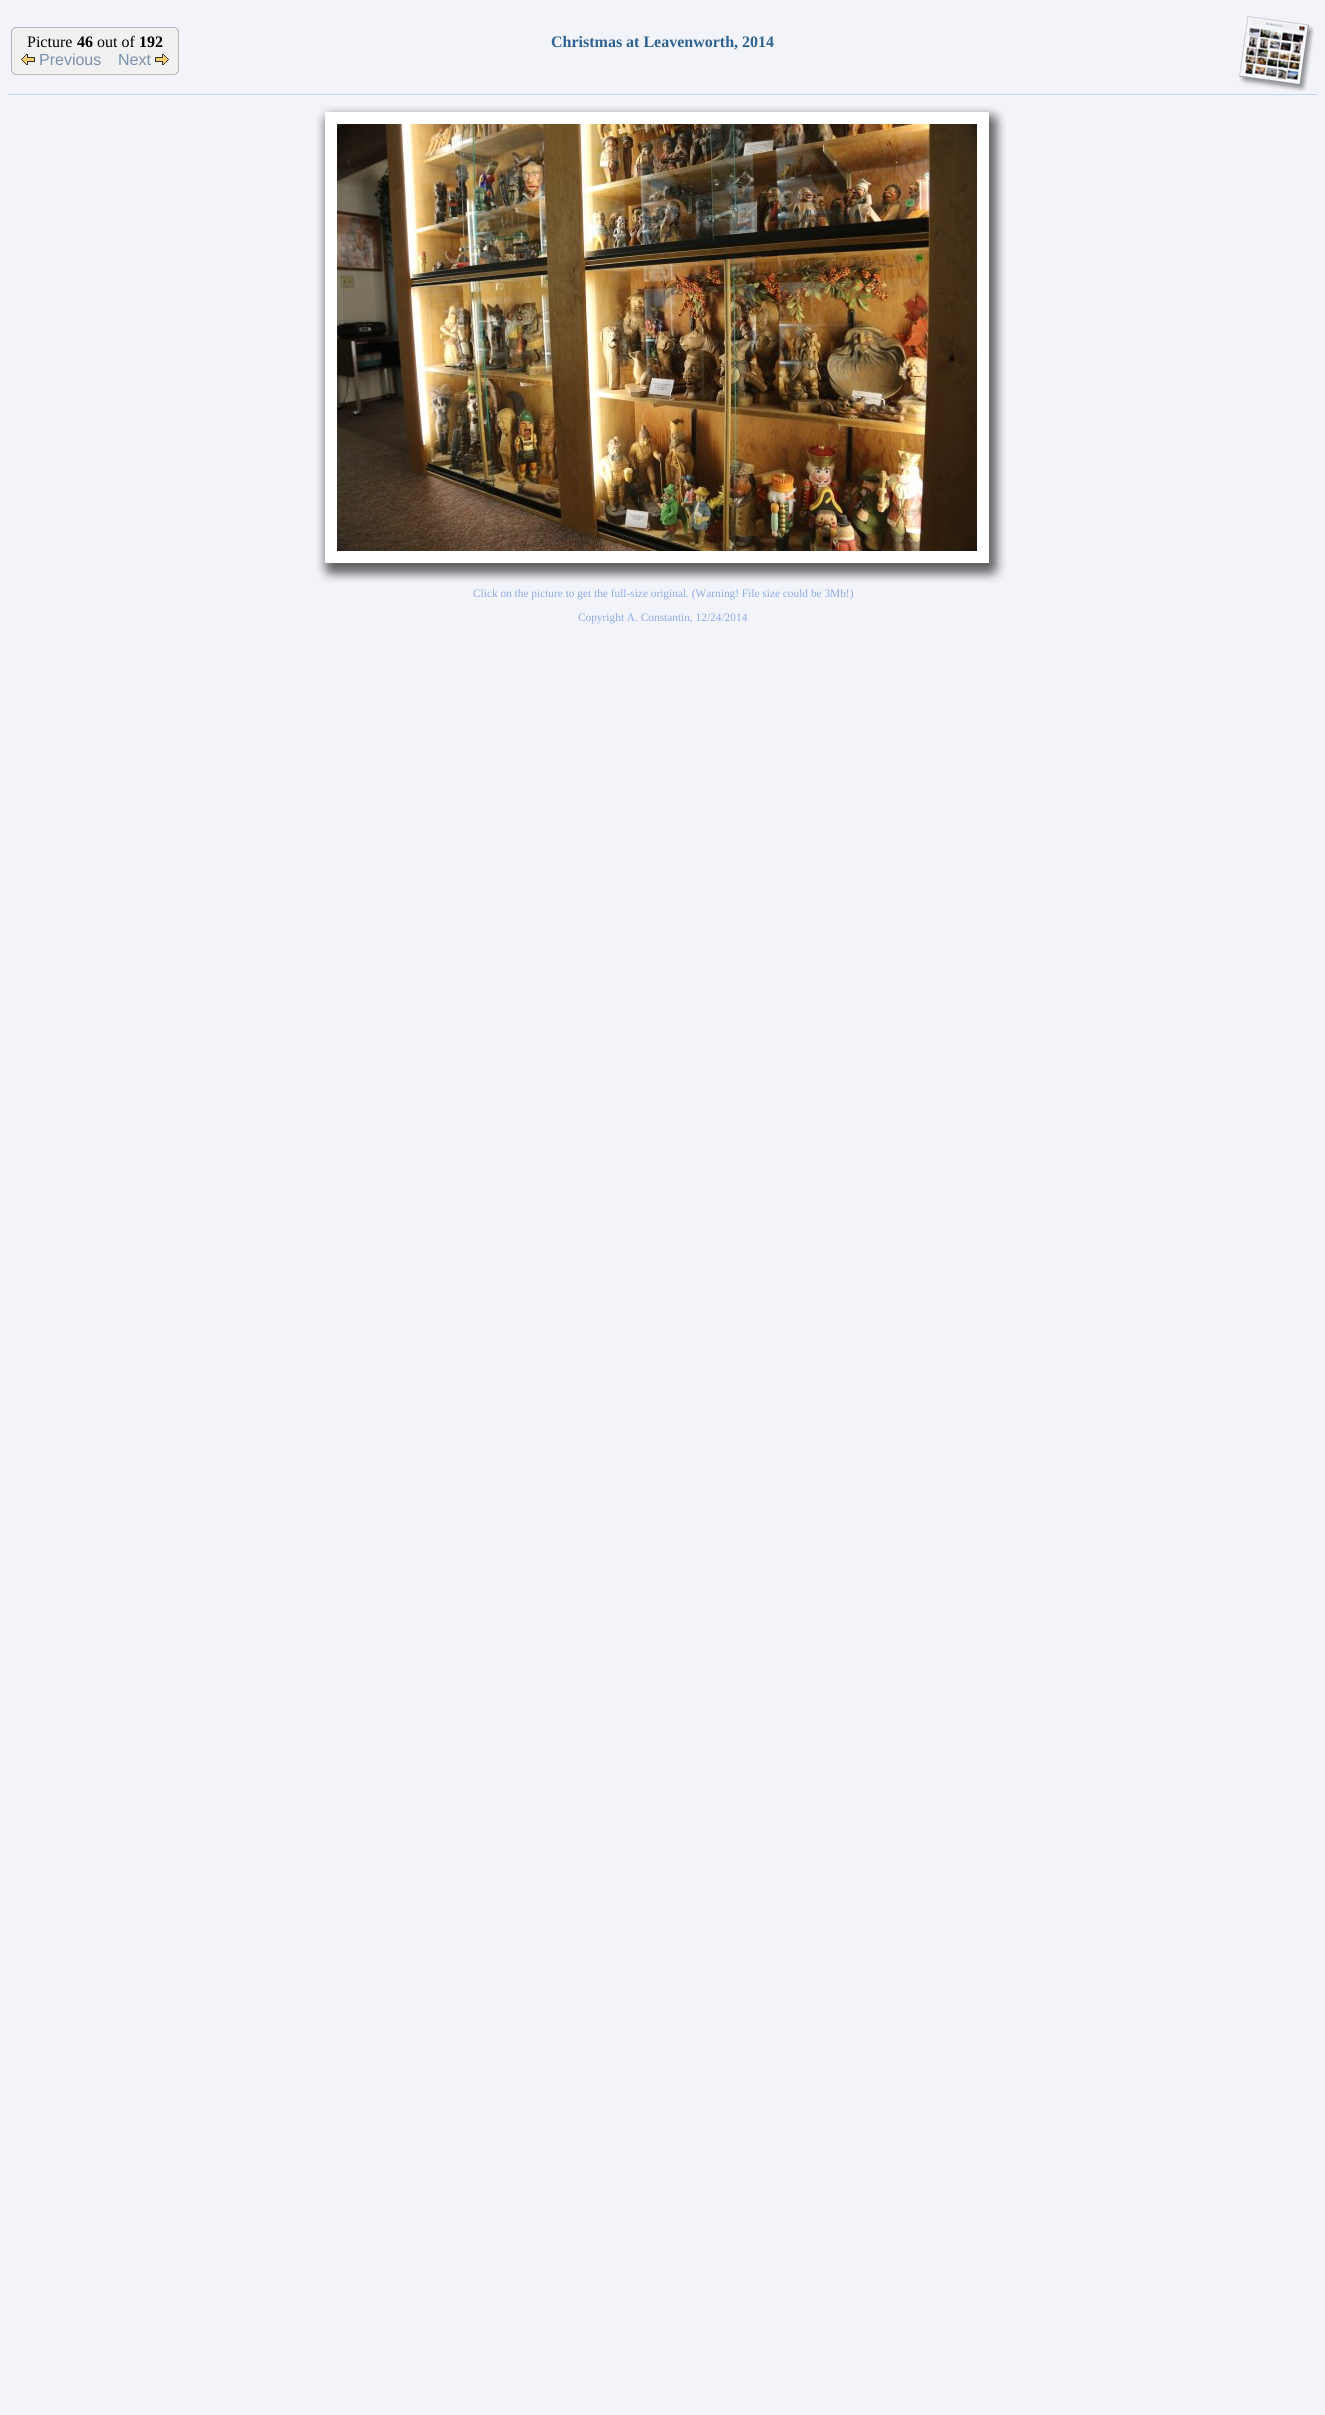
import math
import cairo



def draw_image(context, path, x, y, w, h):
    context.save()
    context.set_source_surface(cairo.ImageSurface.create_from_png(path), x, y)
    context.rectangle(x, y, w, h)
    context.fill()
    context.restore()


def draw(context):
    context.set_source_rgb(243 / 255, 244 / 255, 249 / 255)
    context.paint()
    draw_image(context, "images/1.png", 11, 27, 10, 10)
    context.set_source_rgb(184 / 255, 184 / 255, 184 / 255)
    context.rectangle(11, 37, 1, 28)
    context.fill()
    context.set_source_rgb(241 / 255, 241 / 255, 241 / 255)
    context.rectangle(12, 37, 9, 28)
    context.fill()
    draw_image(context, "images/2.png", 11, 65, 10, 10)
    context.set_source_rgb(184 / 255, 184 / 255, 184 / 255)
    context.rectangle(21, 27, 148, 1)
    context.fill()
    context.set_source_rgb(241 / 255, 241 / 255, 241 / 255)
    context.rectangle(21, 28, 148, 46)
    context.fill()
    draw_image(context, "images/3.png", 21, 54, 14, 11)
    draw_image(context, "images/4.png", 155, 54, 14, 11)
    context.set_source_rgb(184 / 255, 184 / 255, 184 / 255)
    context.rectangle(21, 74, 148, 1)
    context.fill()
    draw_image(context, "images/5.png", 169, 27, 10, 10)
    context.set_source_rgb(241 / 255, 241 / 255, 241 / 255)
    context.rectangle(169, 37, 9, 28)
    context.fill()
    context.set_source_rgb(184 / 255, 184 / 255, 184 / 255)
    context.rectangle(178, 37, 1, 28)
    context.fill()
    draw_image(context, "images/6.png", 169, 65, 10, 10)
    draw_image(context, "images/7.png", 1234, 12, 80, 79)
    context.set_source_rgb(196 / 255, 212 / 255, 243 / 255)
    context.rectangle(8, 94, 1309, 1)
    context.fill()
    draw_image(context, "images/8.png", 320, 106, 17, 6)
    draw_image(context, "images/9.png", 337, 106, 640, 6)
    draw_image(context, "images/10.png", 977, 106, 25, 6)
    draw_image(context, "images/11.png", 316, 112, 9, 12)
    context.set_source_rgb(1, 1, 1)
    context.rectangle(325, 112, 664, 12)
    context.fill()
    draw_image(context, "images/12.png", 989, 112, 17, 12)
    draw_image(context, "images/13.png", 316, 124, 9, 427)
    context.rectangle(325, 124, 12, 427)
    context.fill()
    draw_image(context, "images/14.png", 337, 124, 640, 427)
    context.rectangle(977, 124, 12, 427)
    context.fill()
    draw_image(context, "images/15.png", 989, 124, 17, 427)
    draw_image(context, "images/16.png", 316, 551, 9, 12)
    context.rectangle(325, 551, 664, 12)
    context.fill()
    draw_image(context, "images/17.png", 989, 551, 17, 12)
    draw_image(context, "images/18.png", 316, 563, 21, 20)
    draw_image(context, "images/19.png", 337, 563, 640, 20)
    draw_image(context, "images/20.png", 977, 563, 29, 20)
    context.select_font_face("Liberation Serif")
    context.set_font_size(16)
    context.set_source_rgb(0, 0, 0)
    context.move_to(27, 47)
    context.show_text("Picture")
    context.select_font_face("Liberation Serif", cairo.FontSlant.NORMAL, cairo.FontWeight.BOLD)
    context.move_to(77, 47)
    context.show_text("46")
    context.select_font_face("Liberation Serif")
    context.move_to(97, 47)
    context.show_text("out of")
    context.select_font_face("Liberation Serif", cairo.FontSlant.NORMAL, cairo.FontWeight.BOLD)
    context.move_to(139, 47)
    context.show_text("192")
    context.select_font_face("Liberation Sans")
    context.set_source_rgb(121 / 255, 145 / 255, 171 / 255)
    context.move_to(39, 65)
    context.show_text("Previous")
    context.move_to(118, 65)
    context.show_text("Next")
    context.select_font_face("Liberation Serif", cairo.FontSlant.NORMAL, cairo.FontWeight.BOLD)
    context.set_source_rgb(46 / 255, 97 / 255, 148 / 255)
    context.move_to(551, 47)
    context.show_text("Christmas at Leavenworth, 2014")
    context.select_font_face("Liberation Serif")
    context.set_font_size(11.35)
    context.set_source_rgb(140 / 255, 170 / 255, 231 / 255)
    context.move_to(473, 597)
    context.show_text("Click on the picture to get the full-size original. (Warning! File size could be 3Mb!)")
    context.move_to(578, 621)
    context.show_text("Copyright A. Constantin, 12/24/2014")


surface = cairo.ImageSurface(cairo.Format.RGB24, 1325, 2415)
context = cairo.Context(surface)
options = cairo.FontOptions()
options.set_hint_metrics(cairo.HintMetrics.OFF)
options.set_hint_style(cairo.HintStyle.NONE)
context.set_font_options(options)
context.set_miter_limit(4)
draw(context)
surface.write_to_png("out.png")
